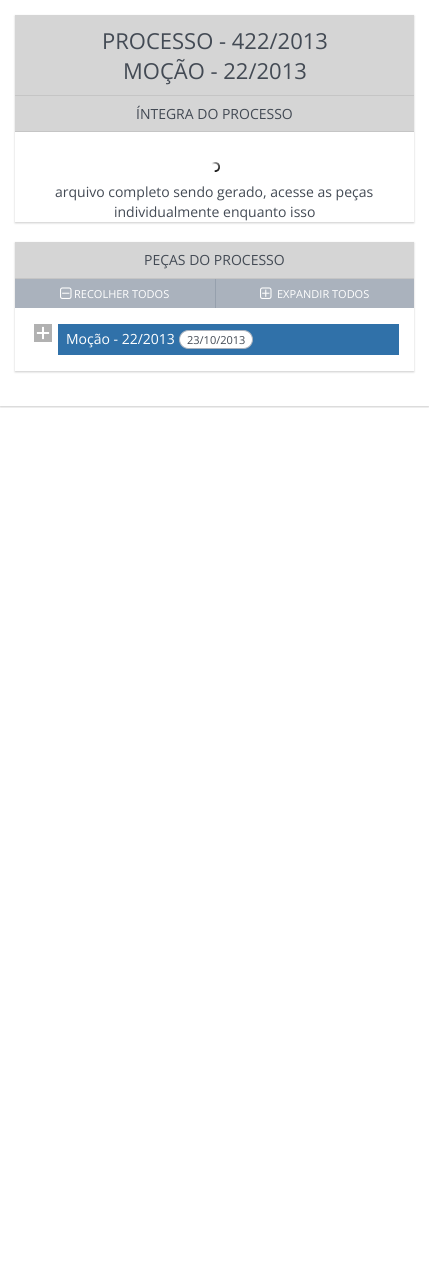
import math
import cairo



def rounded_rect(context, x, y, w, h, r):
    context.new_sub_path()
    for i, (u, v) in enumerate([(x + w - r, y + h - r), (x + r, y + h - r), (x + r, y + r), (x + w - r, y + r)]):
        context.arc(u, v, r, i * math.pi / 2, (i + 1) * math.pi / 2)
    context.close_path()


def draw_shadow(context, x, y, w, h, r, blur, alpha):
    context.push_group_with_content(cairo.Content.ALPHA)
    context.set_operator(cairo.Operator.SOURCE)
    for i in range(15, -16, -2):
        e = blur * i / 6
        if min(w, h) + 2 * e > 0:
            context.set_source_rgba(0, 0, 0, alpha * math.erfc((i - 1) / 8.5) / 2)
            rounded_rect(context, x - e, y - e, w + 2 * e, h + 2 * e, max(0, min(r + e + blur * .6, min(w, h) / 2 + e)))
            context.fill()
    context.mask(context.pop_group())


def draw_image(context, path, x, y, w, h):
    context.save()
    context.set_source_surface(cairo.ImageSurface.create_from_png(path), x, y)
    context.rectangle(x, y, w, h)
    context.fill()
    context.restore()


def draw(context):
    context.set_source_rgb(1, 1, 1)
    context.paint()
    context.save()
    context.rectangle(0, 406, 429, 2)
    context.clip()
    context.set_source_rgb(0, 0, 0)
    draw_shadow(context, 0, 1, 429, 406, 0, 1, 0.2)
    context.restore()
    context.save()
    context.set_fill_rule(cairo.FillRule.EVEN_ODD)
    context.new_path()
    context.move_to(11, 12)
    context.line_to(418, 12)
    context.line_to(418, 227)
    context.line_to(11, 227)
    context.close_path()
    context.move_to(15, 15)
    context.line_to(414, 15)
    context.line_to(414, 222)
    context.line_to(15, 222)
    context.close_path()
    context.clip()
    context.set_source_rgb(0, 0, 0)
    draw_shadow(context, 15, 16, 399, 207, 0, 1, 0.2)
    context.restore()
    context.set_source_rgb(213 / 255, 213 / 255, 213 / 255)
    context.rectangle(15, 15, 399, 80)
    context.fill()
    context.set_source_rgb(197 / 255, 197 / 255, 197 / 255)
    context.rectangle(15, 95, 399, 1)
    context.fill()
    context.set_source_rgb(213 / 255, 213 / 255, 213 / 255)
    context.rectangle(15, 96, 399, 35)
    context.fill()
    context.set_source_rgb(197 / 255, 197 / 255, 197 / 255)
    context.rectangle(15, 131, 399, 1)
    context.fill()
    draw_image(context, "images/1.png", 211, 162, 9, 10)
    context.save()
    context.set_fill_rule(cairo.FillRule.EVEN_ODD)
    context.new_path()
    context.move_to(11, 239)
    context.line_to(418, 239)
    context.line_to(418, 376)
    context.line_to(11, 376)
    context.close_path()
    context.move_to(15, 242)
    context.line_to(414, 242)
    context.line_to(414, 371)
    context.line_to(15, 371)
    context.close_path()
    context.clip()
    context.set_source_rgb(0, 0, 0)
    draw_shadow(context, 15, 243, 399, 129, 0, 1, 0.2)
    context.restore()
    context.set_source_rgb(213 / 255, 213 / 255, 213 / 255)
    context.rectangle(15, 242, 399, 36)
    context.fill()
    context.set_source_rgb(197 / 255, 197 / 255, 197 / 255)
    context.rectangle(15, 278, 399, 1)
    context.fill()
    context.set_source_rgb(170 / 255, 178 / 255, 189 / 255)
    context.rectangle(15, 279, 200, 29)
    context.fill()
    draw_image(context, "images/2.png", 60, 287, 12, 12)
    context.rectangle(216, 279, 198, 29)
    context.fill()
    context.set_source_rgb(150 / 255, 160 / 255, 173 / 255)
    context.rectangle(215, 279, 1, 29)
    context.fill()
    draw_image(context, "images/3.png", 260, 287, 12, 12)
    draw_image(context, "images/4.png", 34, 324, 18, 18)
    context.set_source_rgb(48 / 255, 113 / 255, 169 / 255)
    context.rectangle(58, 324, 341, 31)
    context.fill()
    context.set_source_rgb(1, 1, 1)
    rounded_rect(context, 179.5, 330.5, 73, 18, 9)
    context.fill_preserve()
    context.set_source_rgb(170 / 255, 178 / 255, 189 / 255)
    context.set_line_width(1)
    context.stroke()
    context.select_font_face("Open Sans")
    context.set_font_size(22)
    context.set_source_rgb(67 / 255, 74 / 255, 84 / 255)
    context.move_to(102, 49)
    context.show_text("PROCESSO - 422/2013")
    context.move_to(123, 79)
    context.show_text("MOÇÃO - 22/2013")
    context.set_font_size(14)
    context.move_to(136, 119)
    context.show_text("ÍNTEGRA DO PROCESSO")
    context.move_to(55, 197)
    context.show_text("arquivo completo sendo gerado, acesse as peças")
    context.move_to(114, 217)
    context.show_text("individualmente enquanto isso")
    context.move_to(144, 265)
    context.show_text("PEÇAS DO PROCESSO")
    context.set_font_size(11)
    context.set_source_rgb(1, 1, 1)
    context.move_to(74, 298)
    context.show_text("RECOLHER TODOS")
    context.move_to(277, 298)
    context.show_text("EXPANDIR TODOS")
    context.set_font_size(14)
    context.move_to(66, 344)
    context.show_text("Moção - 22/2013")
    context.set_font_size(11)
    context.set_source_rgb(67 / 255, 74 / 255, 84 / 255)
    context.move_to(187, 344)
    context.show_text("23/10/2013")


surface = cairo.ImageSurface(cairo.Format.RGB24, 429, 1270)
context = cairo.Context(surface)
options = cairo.FontOptions()
options.set_hint_metrics(cairo.HintMetrics.OFF)
options.set_hint_style(cairo.HintStyle.NONE)
context.set_font_options(options)
context.set_miter_limit(4)
draw(context)
surface.write_to_png("out.png")
